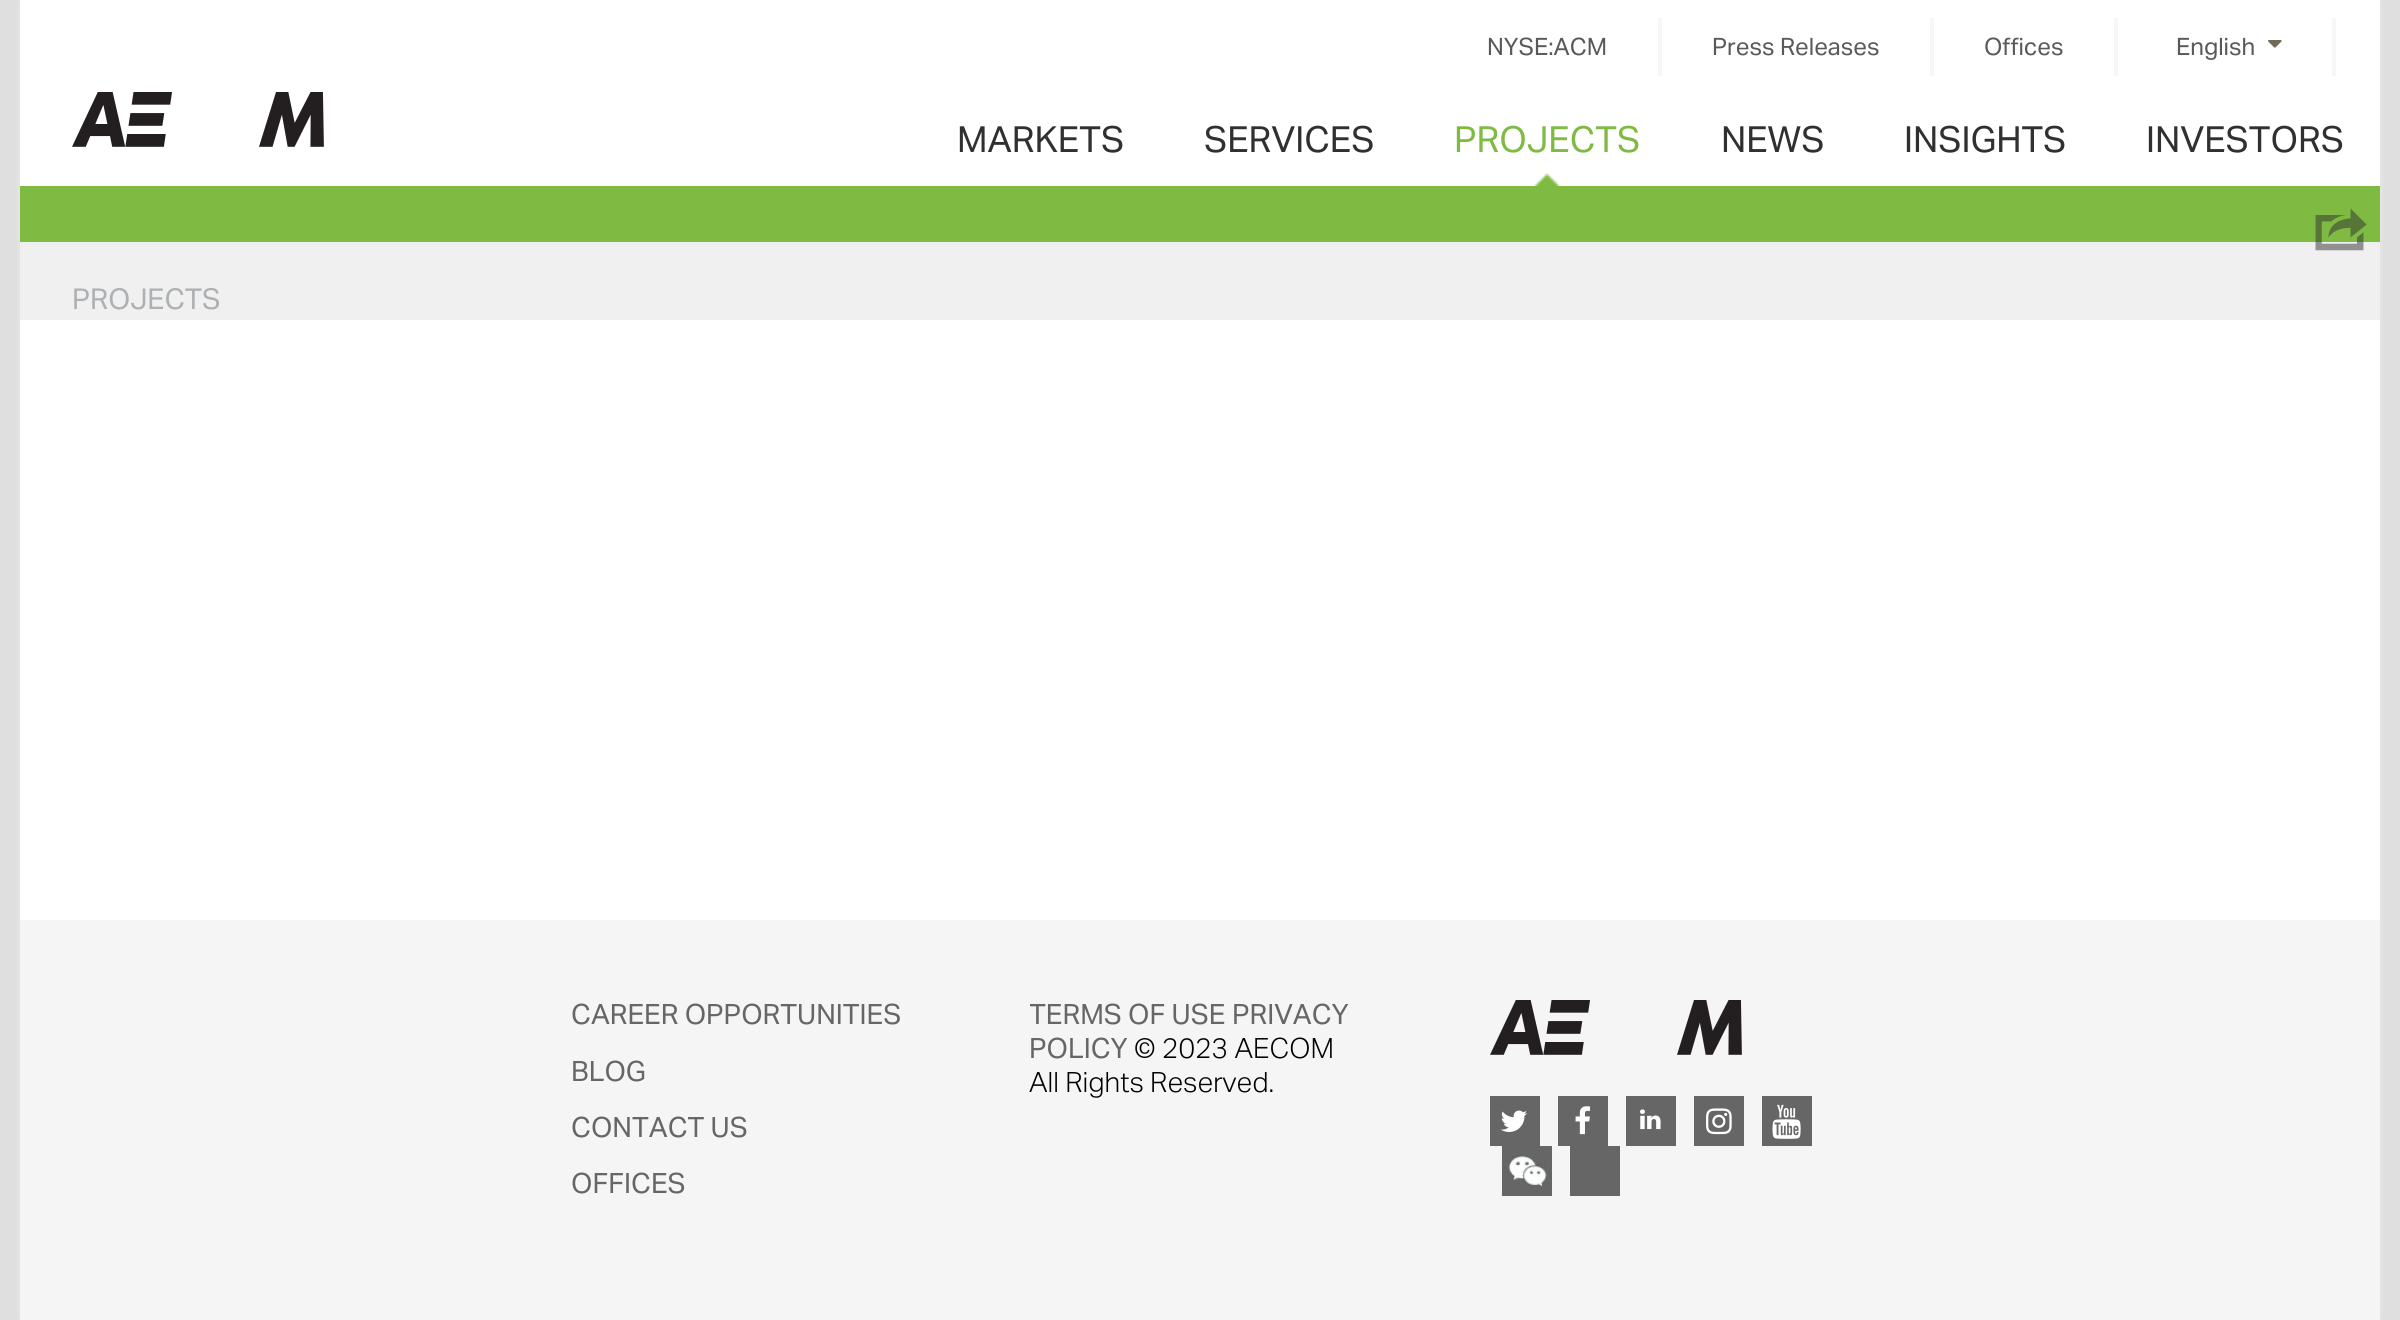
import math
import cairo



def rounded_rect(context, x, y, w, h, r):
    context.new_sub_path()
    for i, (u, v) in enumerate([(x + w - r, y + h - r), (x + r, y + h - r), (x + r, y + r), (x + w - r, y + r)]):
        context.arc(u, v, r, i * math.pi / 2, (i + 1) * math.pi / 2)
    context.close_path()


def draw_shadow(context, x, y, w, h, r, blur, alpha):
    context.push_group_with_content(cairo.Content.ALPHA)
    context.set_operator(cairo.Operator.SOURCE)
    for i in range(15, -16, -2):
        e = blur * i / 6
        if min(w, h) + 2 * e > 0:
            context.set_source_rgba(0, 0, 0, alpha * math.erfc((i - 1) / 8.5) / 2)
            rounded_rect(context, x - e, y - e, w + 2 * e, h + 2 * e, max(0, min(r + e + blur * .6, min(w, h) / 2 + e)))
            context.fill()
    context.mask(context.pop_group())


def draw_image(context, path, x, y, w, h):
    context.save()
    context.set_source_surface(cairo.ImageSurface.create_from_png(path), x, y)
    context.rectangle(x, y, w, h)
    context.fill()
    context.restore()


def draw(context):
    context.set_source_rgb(204 / 255, 204 / 255, 204 / 255)
    context.paint()
    context.set_source_rgb(1, 1, 1)
    context.rectangle(20, 0, 2360, 920)
    context.fill()
    context.save()
    context.set_fill_rule(cairo.FillRule.EVEN_ODD)
    context.new_path()
    context.move_to(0, 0)
    context.line_to(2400, 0)
    context.line_to(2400, 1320)
    context.line_to(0, 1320)
    context.close_path()
    context.move_to(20, 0)
    context.line_to(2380, 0)
    context.line_to(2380, 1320)
    context.line_to(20, 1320)
    context.close_path()
    context.clip()
    context.set_source_rgb(1, 1, 1)
    draw_shadow(context, -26, -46, 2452, 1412, 0, 86, 0.6)
    context.restore()
    context.set_source_rgb(247 / 255, 247 / 255, 247 / 255)
    context.rectangle(1658, 18, 4, 58)
    context.fill()
    context.rectangle(1930, 18, 4, 58)
    context.fill()
    context.rectangle(2114, 18, 4, 58)
    context.fill()
    context.rectangle(2332, 18, 4, 58)
    context.fill()
    draw_image(context, "images/1.png", 2268, 40, 14, 8)
    draw_image(context, "images/2.png", 72, 92, 252, 55)
    context.set_source_rgb(127 / 255, 187 / 255, 66 / 255)
    context.rectangle(1534, 173, 26, 13)
    context.fill()
    draw_image(context, "images/3.png", 1454, 90, 186, 96)
    context.set_source_rgb(240 / 255, 240 / 255, 240 / 255)
    context.rectangle(20, 242, 2360, 78)
    context.fill()
    context.set_source_rgb(127 / 255, 187 / 255, 66 / 255)
    context.rectangle(20, 186, 2360, 56)
    context.fill()
    draw_image(context, "images/4.png", 2315, 208, 52, 43)
    context.set_source_rgb(245 / 255, 245 / 255, 245 / 255)
    context.rectangle(20, 920, 2360, 400)
    context.fill()
    draw_image(context, "images/5.png", 1490, 1000, 252, 55)
    context.set_source_rgb(102 / 255, 102 / 255, 102 / 255)
    context.rectangle(1490, 1096, 50, 50)
    context.fill()
    draw_image(context, "images/6.png", 1501, 1110, 26, 22)
    context.rectangle(1558, 1096, 50, 50)
    context.fill()
    draw_image(context, "images/7.png", 1575, 1106, 16, 29)
    context.rectangle(1626, 1096, 50, 50)
    context.fill()
    draw_image(context, "images/8.png", 1640, 1109, 21, 21)
    context.rectangle(1694, 1096, 50, 50)
    context.fill()
    draw_image(context, "images/9.png", 1706, 1108, 26, 27)
    context.rectangle(1762, 1096, 50, 50)
    context.fill()
    draw_image(context, "images/10.png", 1772, 1104, 29, 35)
    context.rectangle(1502, 1146, 50, 50)
    context.fill()
    draw_image(context, "images/11.png", 1502, 1155, 45, 34)
    context.rectangle(1570, 1146, 50, 50)
    context.fill()
    context.select_font_face("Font")
    context.set_font_size(24)
    context.set_source_rgb(89 / 255, 89 / 255, 89 / 255)
    context.move_to(1487, 55)
    context.show_text("NYSE:ACM")
    context.move_to(1712, 55)
    context.show_text("Press Releases")
    context.move_to(1984, 55)
    context.show_text("Offices")
    context.move_to(2176, 55)
    context.show_text("English")
    context.set_font_size(36)
    context.set_source_rgb(48 / 255, 48 / 255, 48 / 255)
    context.move_to(957, 152)
    context.show_text("MARKETS")
    context.move_to(1204, 152)
    context.show_text("SERVICES")
    context.set_source_rgb(127 / 255, 187 / 255, 66 / 255)
    context.move_to(1454, 152)
    context.show_text("PROJECTS")
    context.set_source_rgb(48 / 255, 48 / 255, 48 / 255)
    context.move_to(1721, 152)
    context.show_text("NEWS")
    context.move_to(1904, 152)
    context.show_text("INSIGHTS")
    context.move_to(2146, 152)
    context.show_text("INVESTORS")
    context.set_font_size(28.75)
    context.set_source_rgb(174 / 255, 177 / 255, 179 / 255)
    context.move_to(72, 309)
    context.show_text("PROJECTS")
    context.set_font_size(28)
    context.set_source_rgb(102 / 255, 102 / 255, 102 / 255)
    context.move_to(571, 1024)
    context.show_text("CAREER OPPORTUNITIES")
    context.move_to(571, 1081)
    context.show_text("BLOG")
    context.move_to(571, 1137)
    context.show_text("CONTACT US")
    context.move_to(571, 1193)
    context.show_text("OFFICES")
    context.save()
    context.rectangle(1030, 998, 340, 102)
    context.clip()
    context.move_to(1029, 1024)
    context.show_text("TERMS OF USE")
    context.restore()
    context.move_to(1232, 1024)
    context.show_text("PRIVACY")
    context.move_to(1029, 1058)
    context.show_text("POLICY")
    context.select_font_face("Font Light")
    context.set_source_rgb(0, 0, 0)
    context.move_to(1134, 1058)
    context.show_text("© 2023 AECOM")
    context.move_to(1029, 1092)
    context.show_text("All Rights Reserved.")


surface = cairo.ImageSurface(cairo.Format.RGB24, 2400, 1320)
context = cairo.Context(surface)
options = cairo.FontOptions()
options.set_hint_metrics(cairo.HintMetrics.OFF)
options.set_hint_style(cairo.HintStyle.NONE)
context.set_font_options(options)
context.set_miter_limit(4)
draw(context)
surface.write_to_png("out.png")
